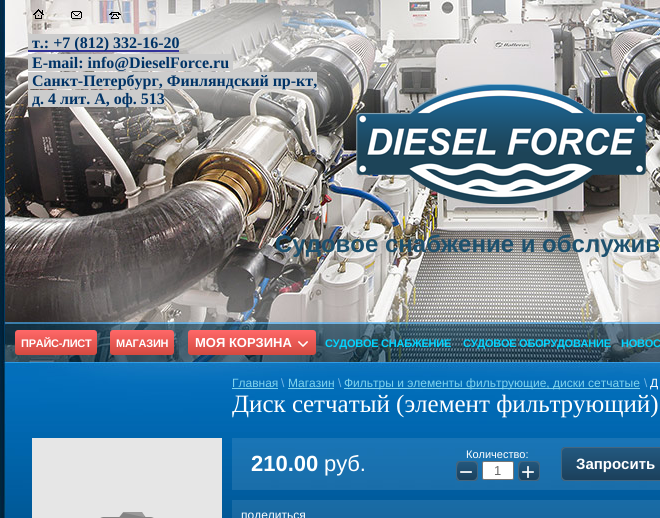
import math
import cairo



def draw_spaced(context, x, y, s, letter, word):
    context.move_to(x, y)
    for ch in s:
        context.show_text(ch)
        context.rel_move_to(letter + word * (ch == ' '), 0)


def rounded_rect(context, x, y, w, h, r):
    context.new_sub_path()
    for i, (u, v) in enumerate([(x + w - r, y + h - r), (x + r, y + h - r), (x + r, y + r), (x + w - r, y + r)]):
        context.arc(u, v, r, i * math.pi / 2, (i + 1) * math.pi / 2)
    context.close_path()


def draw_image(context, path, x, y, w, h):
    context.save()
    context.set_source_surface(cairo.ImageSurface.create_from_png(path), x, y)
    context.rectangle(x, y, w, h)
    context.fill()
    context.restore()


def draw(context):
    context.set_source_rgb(1, 1, 1)
    context.paint()
    draw_image(context, "images/1.png", 0, 0, 660, 518)
    draw_image(context, "images/2.png", 33, 9, 11, 10)
    draw_image(context, "images/3.png", 71, 11, 11, 8)
    draw_image(context, "images/4.png", 109, 12, 12, 7)
    context.set_source_rgb(204 / 255, 204 / 255, 204 / 255)
    context.rectangle(28, 34, 151, 16)
    context.fill()
    context.set_source_rgb(51 / 255, 51 / 255, 153 / 255)
    context.rectangle(28, 50, 151, 2)
    context.fill()
    context.set_source_rgb(204 / 255, 204 / 255, 204 / 255)
    context.rectangle(28, 54, 205, 17)
    context.fill()
    context.rectangle(28, 72, 289, 17)
    context.fill()
    context.rectangle(28, 90, 136, 17)
    context.fill()
    draw_image(context, "images/5.png", 356, 84, 290, 120)
    gradient = cairo.LinearGradient(56, 330, 56, 355)
    gradient.add_color_stop_rgba(0, 1, 104 / 255, 104 / 255, 1)
    gradient.add_color_stop_rgba(1, 211 / 255, 74 / 255, 64 / 255, 1)
    context.set_source(gradient)
    rounded_rect(context, 15, 330, 82, 25, 3)
    context.fill()
    gradient = cairo.LinearGradient(142, 330, 142, 355)
    gradient.add_color_stop_rgba(0, 1, 104 / 255, 104 / 255, 1)
    gradient.add_color_stop_rgba(1, 211 / 255, 74 / 255, 64 / 255, 1)
    context.set_source(gradient)
    rounded_rect(context, 110, 330, 64, 25, 3)
    context.fill()
    gradient = cairo.LinearGradient(252, 330, 252, 355)
    gradient.add_color_stop_rgba(0, 1, 104 / 255, 104 / 255, 1)
    gradient.add_color_stop_rgba(1, 211 / 255, 74 / 255, 64 / 255, 1)
    context.set_source(gradient)
    rounded_rect(context, 188, 330, 128, 25, 3)
    context.fill()
    draw_image(context, "images/6.png", 298, 341, 10, 6)
    context.set_source_rgb(128 / 255, 211 / 255, 237 / 255)
    context.rectangle(232, 388, 46, 1)
    context.fill()
    context.rectangle(288, 388, 46, 1)
    context.fill()
    context.rectangle(344, 388, 296, 1)
    context.fill()
    context.set_source_rgb(230 / 255, 230 / 255, 230 / 255)
    context.rectangle(32, 438, 190, 80)
    context.fill()
    draw_image(context, "images/7.png", 100, 512, 54, 6)
    context.set_source_rgba(1, 1, 1, 0.1)
    context.rectangle(232, 438, 428, 52)
    context.fill()
    gradient = cairo.LinearGradient(467, 461, 467, 481)
    gradient.add_color_stop_rgba(0, 35 / 255, 89 / 255, 128 / 255, 1)
    gradient.add_color_stop_rgba(1, 27 / 255, 63 / 255, 90 / 255, 1)
    context.set_source(gradient)
    rounded_rect(context, 456, 461, 22, 20, 4)
    context.fill()
    context.set_source_rgb(67 / 255, 102 / 255, 128 / 255)
    context.new_path()
    context.move_to(458, 461.5)
    context.curve_to(457, 462.5, 456, 463.5, 456, 465)
    context.line_to(456, 477)
    context.curve_to(456, 479, 458, 481, 460, 481)
    context.line_to(474, 481)
    context.curve_to(475.5, 481, 477, 480, 477.5, 479)
    context.curve_to(475, 481, 469.5, 480, 467, 480)
    context.line_to(459.5, 480)
    context.line_to(458.5, 479)
    context.curve_to(457.5, 478, 457, 477, 457, 475.5)
    context.line_to(457, 465)
    context.curve_to(457, 464, 457.5, 462.5, 458, 461.5)
    context.close_path()
    context.fill()
    context.new_path()
    context.move_to(459, 462)
    context.curve_to(462.5, 462, 473.5, 461, 475.5, 463)
    context.line_to(477, 465.5)
    context.curve_to(477, 467, 477, 475.5, 477, 478)
    context.curve_to(477, 479, 476.5, 480, 476, 480.5)
    context.curve_to(477, 480, 478, 478.5, 478, 477)
    context.line_to(478, 465)
    context.curve_to(478, 463, 476, 461, 474, 461)
    context.line_to(460, 461)
    context.curve_to(458.5, 461, 457.5, 461.5, 456.5, 462.5)
    context.curve_to(457.5, 462.5, 458, 462, 459, 462)
    context.close_path()
    context.fill()
    context.new_path()
    context.move_to(456.5, 479.5)
    context.curve_to(457.5, 480.5, 458.5, 481, 460, 481)
    context.line_to(474, 481)
    context.curve_to(476, 481, 478, 479, 478, 477)
    context.line_to(478, 465)
    context.curve_to(478, 463.5, 477, 462, 476, 461.5)
    context.curve_to(476.5, 462, 477, 463, 477, 464)
    context.curve_to(477, 466.5, 477, 475, 477, 476.5)
    context.line_to(475.5, 479)
    context.curve_to(473.5, 481, 468, 480, 465, 480)
    context.curve_to(463, 480, 458.5, 480.5, 456.5, 479.5)
    context.close_path()
    context.fill()
    context.new_path()
    context.move_to(461, 462)
    context.curve_to(464, 462, 475, 461, 477.5, 463)
    context.curve_to(477, 462, 475.5, 461, 474, 461)
    context.line_to(460, 461)
    context.curve_to(458, 461, 456, 463, 456, 465)
    context.line_to(456, 477)
    context.curve_to(456, 478.5, 457, 479.5, 458, 480.5)
    context.curve_to(456.5, 478.5, 456.5, 466, 458, 464)
    context.curve_to(458.5, 462.5, 459.5, 462, 461, 462)
    context.close_path()
    context.fill()
    context.set_source_rgb(1, 1, 1)
    rounded_rect(context, 482.5, 461.5, 31, 18, 1.5)
    context.fill_preserve()
    context.set_source_rgb(118 / 255, 118 / 255, 118 / 255)
    context.set_line_width(1)
    context.stroke()
    gradient = cairo.LinearGradient(529, 461, 529, 481)
    gradient.add_color_stop_rgba(0, 35 / 255, 89 / 255, 128 / 255, 1)
    gradient.add_color_stop_rgba(1, 27 / 255, 63 / 255, 90 / 255, 1)
    context.set_source(gradient)
    rounded_rect(context, 518, 461, 22, 20, 4)
    context.fill()
    context.set_source_rgb(67 / 255, 102 / 255, 128 / 255)
    context.new_path()
    context.move_to(520, 461.5)
    context.curve_to(519, 462.5, 518, 463.5, 518, 465)
    context.line_to(518, 477)
    context.curve_to(518, 479, 520, 481, 522, 481)
    context.line_to(536, 481)
    context.curve_to(537.5, 481, 539, 480, 539.5, 479)
    context.curve_to(537, 481, 531.5, 480, 529, 480)
    context.line_to(521.5, 480)
    context.line_to(520.5, 479)
    context.curve_to(519.5, 478, 519, 477, 519, 475.5)
    context.line_to(519, 465)
    context.curve_to(519, 464, 519.5, 462.5, 520, 461.5)
    context.close_path()
    context.fill()
    context.new_path()
    context.move_to(521, 462)
    context.curve_to(524.5, 462, 535.5, 461, 537.5, 463)
    context.line_to(539, 465.5)
    context.curve_to(539, 467, 539, 475.5, 539, 478)
    context.curve_to(539, 479, 538.5, 480, 538, 480.5)
    context.curve_to(539, 480, 540, 478.5, 540, 477)
    context.line_to(540, 465)
    context.curve_to(540, 463, 538, 461, 536, 461)
    context.line_to(522, 461)
    context.curve_to(520.5, 461, 519.5, 461.5, 518.5, 462.5)
    context.curve_to(519.5, 462.5, 520, 462, 521, 462)
    context.close_path()
    context.fill()
    context.new_path()
    context.move_to(518.5, 479.5)
    context.curve_to(519.5, 480.5, 520.5, 481, 522, 481)
    context.line_to(536, 481)
    context.curve_to(538, 481, 540, 479, 540, 477)
    context.line_to(540, 465)
    context.curve_to(540, 463.5, 539, 462, 538, 461.5)
    context.curve_to(538.5, 462, 539, 463, 539, 464)
    context.curve_to(539, 466.5, 539, 475, 539, 476.5)
    context.line_to(537.5, 479)
    context.curve_to(535.5, 481, 530, 480, 527, 480)
    context.curve_to(525, 480, 520.5, 480.5, 518.5, 479.5)
    context.close_path()
    context.fill()
    context.new_path()
    context.move_to(523, 462)
    context.curve_to(526, 462, 537, 461, 539.5, 463)
    context.curve_to(539, 462, 537.5, 461, 536, 461)
    context.line_to(522, 461)
    context.curve_to(520, 461, 518, 463, 518, 465)
    context.line_to(518, 477)
    context.curve_to(518, 478.5, 519, 479.5, 520, 480.5)
    context.curve_to(518.5, 478.5, 518.5, 466, 520, 464)
    context.curve_to(520.5, 462.5, 521.5, 462, 523, 462)
    context.close_path()
    context.fill()
    gradient = cairo.LinearGradient(636, 447, 636, 481)
    gradient.add_color_stop_rgba(0, 35 / 255, 89 / 255, 128 / 255, 1)
    gradient.add_color_stop_rgba(1, 27 / 255, 63 / 255, 90 / 255, 1)
    context.set_source(gradient)
    rounded_rect(context, 561, 447, 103, 34, 4)
    context.fill()
    context.set_source_rgb(67 / 255, 102 / 255, 128 / 255)
    context.new_path()
    context.move_to(563, 448)
    context.curve_to(562, 448, 561, 450, 561, 451)
    context.line_to(561, 477)
    context.curve_to(561, 479, 563, 481, 565, 481)
    context.line_to(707, 481)
    context.curve_to(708, 481, 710, 480, 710, 479)
    context.line_to(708, 480)
    context.line_to(566, 480)
    context.curve_to(564, 480, 562, 478, 562, 476)
    context.line_to(562, 450)
    context.close_path()
    context.fill()
    context.new_path()
    context.move_to(562, 479)
    context.curve_to(562, 480, 564, 481, 565, 481)
    context.line_to(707, 481)
    context.curve_to(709, 481, 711, 479, 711, 477)
    context.line_to(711, 451)
    context.curve_to(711, 450, 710, 448, 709, 448)
    context.line_to(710, 450)
    context.line_to(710, 476)
    context.curve_to(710, 478, 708, 480, 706, 480)
    context.line_to(564, 480)
    context.close_path()
    context.fill()
    context.new_path()
    context.move_to(566, 448)
    context.line_to(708, 448)
    context.line_to(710, 449)
    context.curve_to(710, 448, 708, 447, 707, 447)
    context.line_to(565, 447)
    context.curve_to(563, 447, 561, 449, 561, 451)
    context.line_to(561, 477)
    context.curve_to(561, 478, 562, 480, 563, 480)
    context.line_to(562, 478)
    context.line_to(562, 452)
    context.curve_to(562, 450, 564, 448, 566, 448)
    context.close_path()
    context.fill()
    context.set_source_rgba(1, 1, 1, 0.1)
    context.rectangle(232, 500, 428, 18)
    context.fill()
    context.select_font_face("Liberation Serif", cairo.FontSlant.NORMAL, cairo.FontWeight.BOLD)
    context.set_font_size(16)
    context.set_source_rgb(0, 51 / 255, 102 / 255)
    context.move_to(32, 48)
    context.show_text("т.: +7 (812) 332-16-20")
    context.move_to(32, 68)
    context.show_text("E-mail: info@DieselForce.ru")
    context.move_to(32, 86)
    context.show_text("Санкт-Петербург, Финляндский пр-кт,")
    context.move_to(32, 104)
    context.show_text("д. 4 лит. А, оф. 513")
    context.select_font_face("Liberation Sans", cairo.FontSlant.NORMAL, cairo.FontWeight.BOLD)
    context.set_font_size(24)
    context.set_source_rgb(29 / 255, 81 / 255, 110 / 255)
    context.move_to(275, 252)
    context.show_text("Судовое снабжение и обслужив")
    context.set_font_size(11)
    context.set_source_rgb(1, 1, 1)
    draw_spaced(context, 21, 347, "ПРАЙС-ЛИСТ", -0.25, 0)
    draw_spaced(context, 116, 347, "МАГАЗИН", -0.25, 0)
    context.set_font_size(13)
    context.move_to(195, 347)
    context.show_text("МОЯ КОРЗИНА")
    context.set_font_size(11)
    context.set_source_rgb(3 / 255, 213 / 255, 1)
    draw_spaced(context, 325, 347, "СУДОВОЕ СНАБЖЕНИЕ", -0.25, 0)
    draw_spaced(context, 463, 347, "СУДОВОЕ ОБОРУДОВАНИЕ", -0.25, 0)
    draw_spaced(context, 621, 347, "НОВОС", -0.25, 0)
    context.select_font_face("Liberation Sans")
    context.set_font_size(12)
    context.set_source_rgb(128 / 255, 211 / 255, 237 / 255)
    context.move_to(232, 387)
    context.show_text("Главная")
    context.set_source_rgb(117 / 255, 184 / 255, 231 / 255)
    context.move_to(281, 387)
    context.show_text("\\")
    context.set_source_rgb(128 / 255, 211 / 255, 237 / 255)
    context.move_to(288, 387)
    context.show_text("Магазин")
    context.set_source_rgb(117 / 255, 184 / 255, 231 / 255)
    context.move_to(338, 387)
    context.show_text("\\")
    context.set_source_rgb(128 / 255, 211 / 255, 237 / 255)
    context.move_to(344, 387)
    context.show_text("Фильтры и элементы фильтрующие, диски сетчатые")
    context.set_source_rgb(117 / 255, 184 / 255, 231 / 255)
    context.move_to(644, 387)
    context.show_text("\\")
    context.set_source_rgb(1, 1, 1)
    context.move_to(650, 387)
    context.show_text("Д")
    context.select_font_face("Liberation Serif")
    context.set_font_size(25)
    context.move_to(232, 412)
    context.show_text("Диск сетчатый (элемент фильтрующий)")
    context.select_font_face("Liberation Sans", cairo.FontSlant.NORMAL, cairo.FontWeight.BOLD)
    context.set_font_size(22)
    context.move_to(251, 471)
    context.show_text("210.00")
    context.select_font_face("Liberation Sans")
    context.move_to(324, 471)
    context.show_text("руб.")
    context.set_font_size(11)
    context.move_to(466, 458)
    context.show_text("Количество:")
    context.set_font_size(24)
    context.move_to(459, 480)
    context.show_text("−")
    context.set_font_size(13)
    context.set_source_rgb(102 / 255, 102 / 255, 102 / 255)
    context.move_to(494, 475)
    context.show_text("1")
    context.set_font_size(24)
    context.set_source_rgb(1, 1, 1)
    context.move_to(521, 480)
    context.show_text("+")
    context.select_font_face("Liberation Sans", cairo.FontSlant.NORMAL, cairo.FontWeight.BOLD)
    context.set_font_size(15)
    context.move_to(576, 469)
    context.show_text("Запросить")
    context.select_font_face("Liberation Sans")
    context.set_font_size(12)
    context.move_to(241, 519)
    context.show_text("поделиться")


surface = cairo.ImageSurface(cairo.Format.RGB24, 660, 518)
context = cairo.Context(surface)
options = cairo.FontOptions()
options.set_hint_metrics(cairo.HintMetrics.OFF)
options.set_hint_style(cairo.HintStyle.NONE)
context.set_font_options(options)
context.set_miter_limit(4)
draw(context)
surface.write_to_png("out.png")
